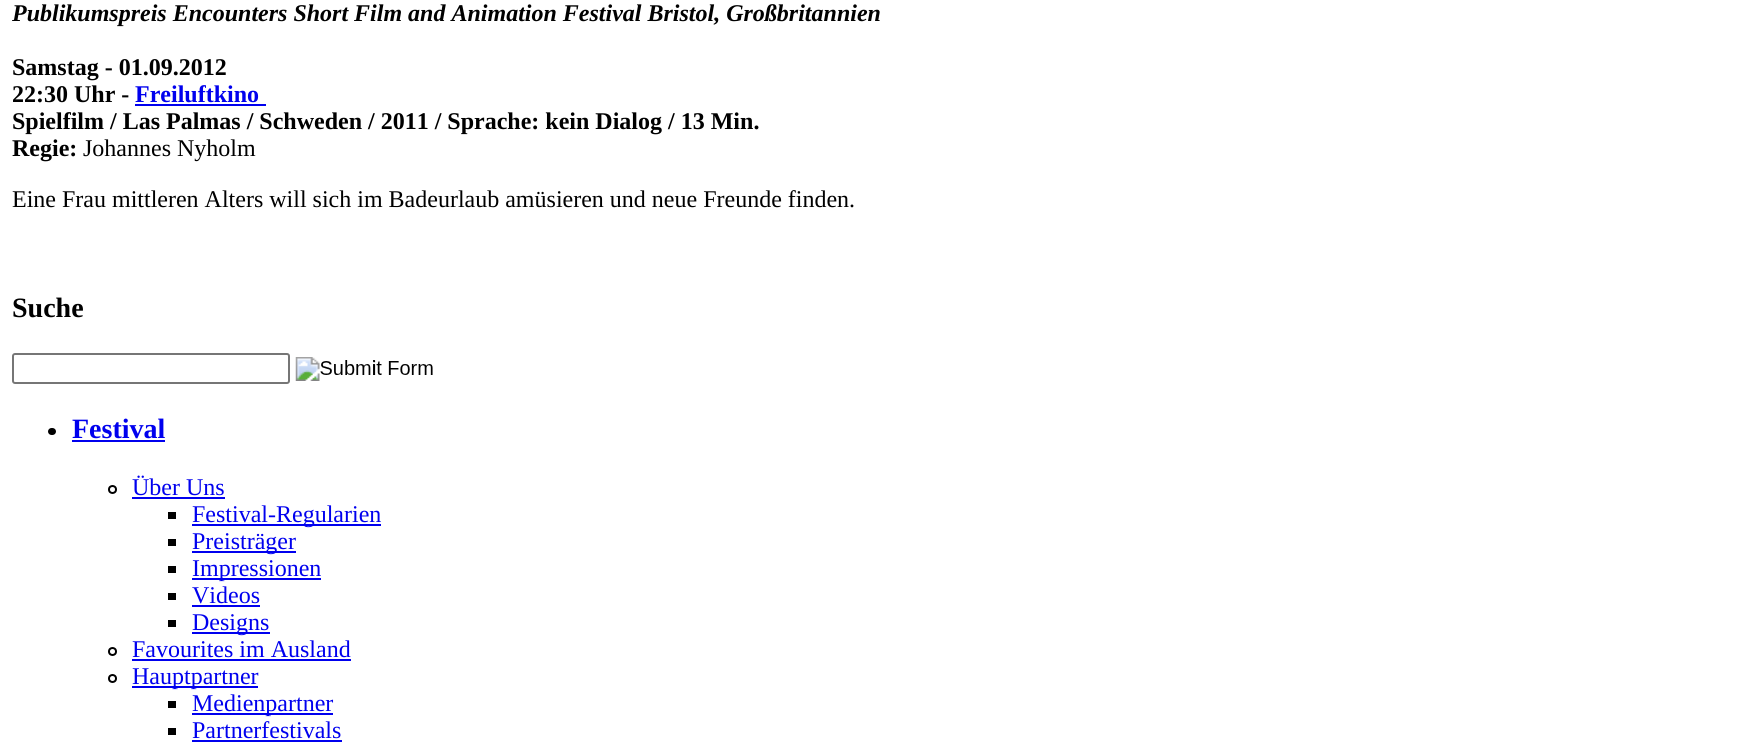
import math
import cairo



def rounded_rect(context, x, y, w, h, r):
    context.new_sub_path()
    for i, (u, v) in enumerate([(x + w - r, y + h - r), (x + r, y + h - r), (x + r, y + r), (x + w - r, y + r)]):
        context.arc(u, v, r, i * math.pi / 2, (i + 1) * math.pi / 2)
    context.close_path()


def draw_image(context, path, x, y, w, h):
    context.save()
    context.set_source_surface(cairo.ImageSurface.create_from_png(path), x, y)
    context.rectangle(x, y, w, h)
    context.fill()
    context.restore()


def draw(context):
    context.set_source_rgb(1, 1, 1)
    context.paint()
    context.set_source_rgb(0, 0, 238 / 255)
    context.rectangle(135, 104, 131, 2)
    context.fill()
    rounded_rect(context, 13, 354, 276, 29, 2)
    context.set_source_rgb(118 / 255, 118 / 255, 118 / 255)
    context.stroke()
    draw_image(context, "images/1.png", 295, 357, 138, 24)
    context.set_source_rgb(0, 0, 0)
    rounded_rect(context, 48, 428, 8, 7, 3.5)
    context.fill()
    context.set_source_rgb(0, 0, 238 / 255)
    context.rectangle(72, 440, 93, 2)
    context.fill()
    context.arc(112.5, 489.5, 3.5, 0, 2 * math.pi)
    context.set_source_rgb(0, 0, 0)
    context.stroke()
    context.set_source_rgb(0, 0, 238 / 255)
    context.rectangle(132, 497, 93, 2)
    context.fill()
    context.set_source_rgb(0, 0, 0)
    context.rectangle(168, 512, 8, 7)
    context.fill()
    context.set_source_rgb(0, 0, 238 / 255)
    context.rectangle(192, 524, 189, 2)
    context.fill()
    context.set_source_rgb(0, 0, 0)
    context.rectangle(168, 539, 8, 7)
    context.fill()
    context.set_source_rgb(0, 0, 238 / 255)
    context.rectangle(192, 551, 104, 2)
    context.fill()
    context.set_source_rgb(0, 0, 0)
    context.rectangle(168, 566, 8, 7)
    context.fill()
    context.set_source_rgb(0, 0, 238 / 255)
    context.rectangle(192, 578, 129, 2)
    context.fill()
    context.set_source_rgb(0, 0, 0)
    context.rectangle(168, 593, 8, 7)
    context.fill()
    context.set_source_rgb(0, 0, 238 / 255)
    context.rectangle(192, 605, 68, 2)
    context.fill()
    context.set_source_rgb(0, 0, 0)
    context.rectangle(168, 620, 8, 7)
    context.fill()
    context.set_source_rgb(0, 0, 238 / 255)
    context.rectangle(192, 632, 78, 2)
    context.fill()
    context.arc(112.5, 651.5, 3.5, 0, 2 * math.pi)
    context.set_source_rgb(0, 0, 0)
    context.stroke()
    context.set_source_rgb(0, 0, 238 / 255)
    context.rectangle(132, 659, 219, 2)
    context.fill()
    context.arc(112.5, 678.5, 3.5, 0, 2 * math.pi)
    context.set_source_rgb(0, 0, 0)
    context.stroke()
    context.set_source_rgb(0, 0, 238 / 255)
    context.rectangle(132, 686, 126, 2)
    context.fill()
    context.set_source_rgb(0, 0, 0)
    context.rectangle(168, 701, 8, 7)
    context.fill()
    context.set_source_rgb(0, 0, 238 / 255)
    context.rectangle(192, 713, 141, 2)
    context.fill()
    context.set_source_rgb(0, 0, 0)
    context.rectangle(168, 728, 8, 7)
    context.fill()
    context.set_source_rgb(0, 0, 238 / 255)
    context.rectangle(192, 740, 150, 2)
    context.fill()
    context.select_font_face("Liberation Serif", cairo.FontSlant.ITALIC, cairo.FontWeight.BOLD)
    context.set_font_size(24)
    context.set_source_rgb(0, 0, 0)
    context.move_to(12, 21)
    context.show_text("Publikumspreis Encounters Short Film and Animation Festival Bristol, Großbritannien")
    context.select_font_face("Liberation Serif", cairo.FontSlant.NORMAL, cairo.FontWeight.BOLD)
    context.move_to(12, 75)
    context.show_text("Samstag - 01.09.2012")
    context.move_to(12, 102)
    context.show_text("22:30 Uhr -")
    context.set_source_rgb(0, 0, 238 / 255)
    context.move_to(135, 102)
    context.show_text("Freiluftkino")
    context.set_source_rgb(0, 0, 0)
    context.move_to(12, 129)
    context.show_text("Spielfilm / Las Palmas / Schweden / 2011 / Sprache: kein Dialog / 13 Min.")
    context.move_to(12, 156)
    context.show_text("Regie:")
    context.select_font_face("Liberation Serif")
    context.move_to(83, 156)
    context.show_text("Johannes Nyholm")
    context.move_to(12, 207)
    context.show_text("Eine Frau mittleren Alters will sich im Badeurlaub amüsieren und neue Freunde finden.")
    context.select_font_face("Liberation Serif", cairo.FontSlant.NORMAL, cairo.FontWeight.BOLD)
    context.set_font_size(28)
    context.move_to(12, 317)
    context.show_text("Suche")
    context.select_font_face("Liberation Sans")
    context.set_font_size(20)
    context.move_to(372, 375)
    context.show_text("i")
    context.select_font_face("Liberation Serif", cairo.FontSlant.NORMAL, cairo.FontWeight.BOLD)
    context.set_font_size(28)
    context.set_source_rgb(0, 0, 238 / 255)
    context.move_to(72, 438)
    context.show_text("Festival")
    context.select_font_face("Liberation Serif")
    context.set_font_size(24)
    context.move_to(132, 495)
    context.show_text("Über Uns")
    context.move_to(192, 522)
    context.show_text("Festival-Regularien")
    context.move_to(192, 549)
    context.show_text("Preisträger")
    context.move_to(192, 576)
    context.show_text("Impressionen")
    context.move_to(192, 603)
    context.show_text("Videos")
    context.move_to(192, 630)
    context.show_text("Designs")
    context.move_to(132, 657)
    context.show_text("Favourites im Ausland")
    context.move_to(132, 684)
    context.show_text("Hauptpartner")
    context.move_to(192, 711)
    context.show_text("Medienpartner")
    context.move_to(192, 738)
    context.show_text("Partnerfestivals")


surface = cairo.ImageSurface(cairo.Format.RGB24, 1764, 742)
context = cairo.Context(surface)
options = cairo.FontOptions()
options.set_hint_metrics(cairo.HintMetrics.OFF)
options.set_hint_style(cairo.HintStyle.NONE)
context.set_font_options(options)
context.set_miter_limit(4)
draw(context)
surface.write_to_png("out.png")
